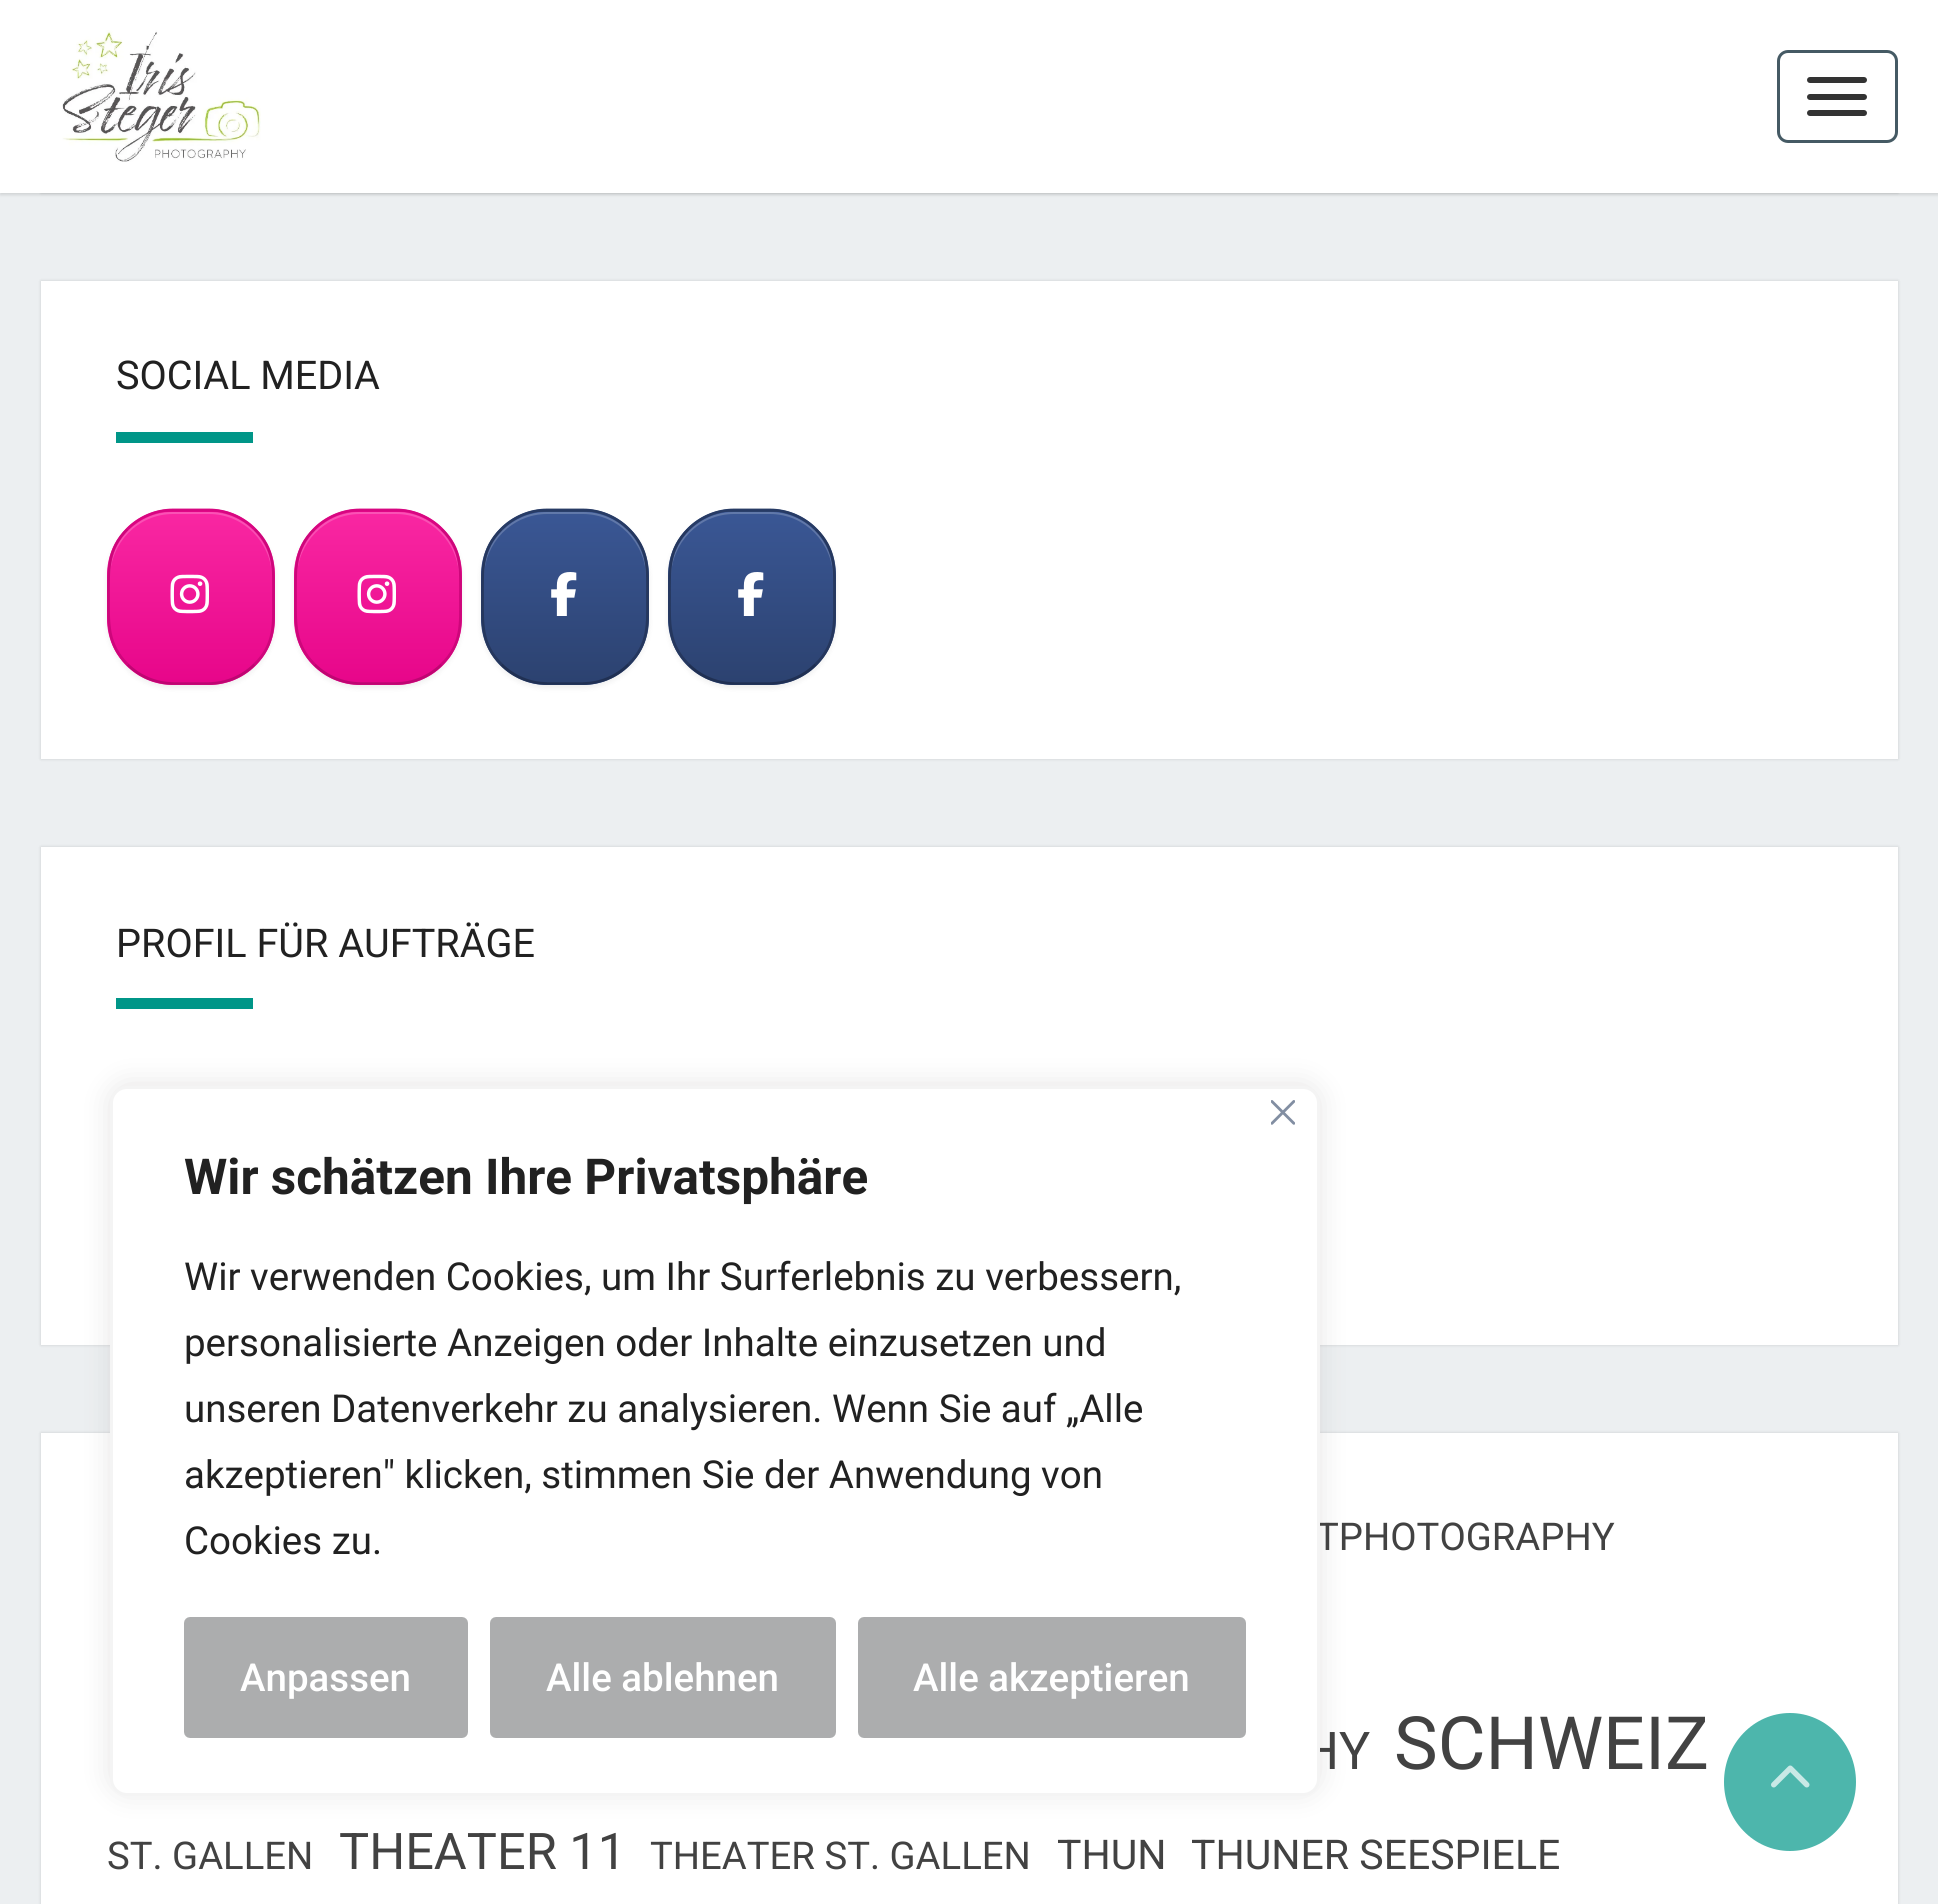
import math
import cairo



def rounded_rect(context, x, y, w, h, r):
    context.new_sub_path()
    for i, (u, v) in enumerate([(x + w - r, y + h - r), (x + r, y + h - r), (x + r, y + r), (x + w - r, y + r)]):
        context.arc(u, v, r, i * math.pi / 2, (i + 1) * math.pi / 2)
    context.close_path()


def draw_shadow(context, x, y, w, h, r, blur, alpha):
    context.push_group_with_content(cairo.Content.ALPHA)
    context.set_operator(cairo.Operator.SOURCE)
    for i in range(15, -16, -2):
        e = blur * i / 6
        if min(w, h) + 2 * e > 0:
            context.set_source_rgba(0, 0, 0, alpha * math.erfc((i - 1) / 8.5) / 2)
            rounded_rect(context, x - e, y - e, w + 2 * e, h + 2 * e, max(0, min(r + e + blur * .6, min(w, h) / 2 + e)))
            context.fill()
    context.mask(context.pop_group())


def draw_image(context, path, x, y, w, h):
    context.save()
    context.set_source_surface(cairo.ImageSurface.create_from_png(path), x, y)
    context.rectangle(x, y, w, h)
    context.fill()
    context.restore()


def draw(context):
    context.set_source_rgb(236 / 255, 239 / 255, 241 / 255)
    context.paint()
    context.set_source_rgb(100 / 255, 100 / 255, 100 / 255)
    draw_shadow(context, 0, 3, 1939, 192, 0, 1.5, 0.2)
    context.set_source_rgb(0, 0, 0)
    draw_shadow(context, 41, -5, 1857, 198, 0, 1.5, 0.15)
    context.set_source_rgb(1, 1, 1)
    context.rectangle(0, 0, 1938, 193)
    context.fill()
    draw_image(context, "images/1.png", 62, 30, 199, 132)
    rounded_rect(context, 1778.5, 51.5, 118, 90, 9.5)
    context.set_source_rgb(69 / 255, 90 / 255, 100 / 255)
    context.set_line_width(3)
    context.stroke()
    context.set_source_rgb(51 / 255, 51 / 255, 51 / 255)
    rounded_rect(context, 1807, 77, 60, 6, 3)
    context.fill()
    rounded_rect(context, 1807, 94, 60, 6, 3)
    context.fill()
    rounded_rect(context, 1807, 110, 60, 6, 3)
    context.fill()
    context.set_source_rgb(0, 0, 0)
    draw_shadow(context, 41, 281, 1857, 478, 0, 1.5, 0.15)
    context.set_source_rgb(1, 1, 1)
    context.rectangle(41, 281, 1857, 478)
    context.fill()
    context.set_source_rgb(0, 150 / 255, 136 / 255)
    context.rectangle(116, 432, 137, 11)
    context.fill()
    context.set_source_rgb(0, 0, 0)
    draw_shadow(context, 107, 512, 168, 176, 66, 3, 0.07)
    context.save()
    rounded_rect(context, 107, 509, 168, 176, 66)
    context.clip()
    gradient = cairo.LinearGradient(110, 512, 110, 341)
    gradient.add_color_stop_rgba(0, 231 / 255, 6 / 255, 138 / 255, 1)
    gradient.add_color_stop_rgba(1, 249 / 255, 39 / 255, 162 / 255, 1)
    context.set_source(gradient)
    context.rectangle(153, 509, 76, 3)
    context.fill()
    gradient = cairo.LinearGradient(110, 682, 110, 512)
    gradient.add_color_stop_rgba(0, 231 / 255, 6 / 255, 138 / 255, 1)
    gradient.add_color_stop_rgba(1, 249 / 255, 39 / 255, 162 / 255, 1)
    context.set_source(gradient)
    context.rectangle(107, 512, 168, 170)
    context.fill()
    gradient = cairo.LinearGradient(110, 853, 110, 682)
    gradient.add_color_stop_rgba(0, 231 / 255, 6 / 255, 138 / 255, 1)
    gradient.add_color_stop_rgba(1, 249 / 255, 39 / 255, 162 / 255, 1)
    context.set_source(gradient)
    context.rectangle(153, 682, 76, 3)
    context.fill()
    context.restore()
    context.set_source_rgba(1, 1, 1, 0.2)
    context.new_path()
    context.move_to(173, 514)
    context.line_to(209, 514)
    context.curve_to(244, 514, 272, 543, 272, 578)
    context.line_to(272, 575)
    context.curve_to(272, 540, 244, 512, 209, 512)
    context.line_to(173, 512)
    context.curve_to(138, 512, 110, 540, 110, 575)
    context.line_to(110, 578)
    context.curve_to(110, 543, 138, 514, 173, 514)
    context.close_path()
    context.fill()
    context.new_path()
    context.move_to(127.5, 529)
    context.curve_to(139.5, 517, 156, 510, 173, 510)
    context.line_to(209, 510)
    context.curve_to(226, 510, 242.5, 517, 254.5, 529)
    context.set_source_rgb(216 / 255, 6 / 255, 129 / 255)
    context.set_line_width(2.8)
    context.stroke()
    context.new_path()
    context.move_to(254.5, 529)
    context.curve_to(275.5, 549.5, 273.5, 570, 273.5, 597)
    context.curve_to(273.5, 623.5, 275.5, 644, 254.5, 664.5)
    context.set_source_rgb(206 / 255, 6 / 255, 123 / 255)
    context.stroke()
    context.new_path()
    context.move_to(254.5, 664.5)
    context.curve_to(242.5, 676.5, 226, 683.5, 209, 683.5)
    context.line_to(173.5, 683.5)
    context.curve_to(156, 683.5, 139.5, 676.5, 127.5, 664.5)
    context.set_source_rgb(191 / 255, 5 / 255, 114 / 255)
    context.stroke()
    context.new_path()
    context.move_to(127.5, 664.5)
    context.curve_to(107, 644, 108.5, 623.5, 108.5, 597)
    context.curve_to(108.5, 570, 107, 549.5, 127.5, 529)
    context.set_source_rgb(206 / 255, 6 / 255, 123 / 255)
    context.stroke()
    draw_image(context, "images/2.png", 170, 574, 39, 40)
    context.set_source_rgb(0, 0, 0)
    draw_shadow(context, 294, 512, 168, 176, 66, 3, 0.07)
    context.save()
    rounded_rect(context, 294, 509, 168, 176, 66)
    context.clip()
    gradient = cairo.LinearGradient(297, 512, 297, 341)
    gradient.add_color_stop_rgba(0, 231 / 255, 6 / 255, 138 / 255, 1)
    gradient.add_color_stop_rgba(1, 249 / 255, 39 / 255, 162 / 255, 1)
    context.set_source(gradient)
    context.rectangle(340, 509, 76, 3)
    context.fill()
    gradient = cairo.LinearGradient(297, 682, 297, 512)
    gradient.add_color_stop_rgba(0, 231 / 255, 6 / 255, 138 / 255, 1)
    gradient.add_color_stop_rgba(1, 249 / 255, 39 / 255, 162 / 255, 1)
    context.set_source(gradient)
    context.rectangle(294, 512, 168, 170)
    context.fill()
    gradient = cairo.LinearGradient(297, 853, 297, 682)
    gradient.add_color_stop_rgba(0, 231 / 255, 6 / 255, 138 / 255, 1)
    gradient.add_color_stop_rgba(1, 249 / 255, 39 / 255, 162 / 255, 1)
    context.set_source(gradient)
    context.rectangle(340, 682, 76, 3)
    context.fill()
    context.restore()
    context.set_source_rgba(1, 1, 1, 0.2)
    context.new_path()
    context.move_to(360, 514)
    context.line_to(396, 514)
    context.curve_to(431, 514, 459, 543, 459, 578)
    context.line_to(459, 575)
    context.curve_to(459, 540, 431, 512, 396, 512)
    context.line_to(360, 512)
    context.curve_to(325, 512, 297, 540, 297, 575)
    context.line_to(297, 578)
    context.curve_to(297, 543, 325, 514, 360, 514)
    context.close_path()
    context.fill()
    context.new_path()
    context.move_to(314.5, 529)
    context.curve_to(326.5, 517, 343, 510, 360, 510)
    context.line_to(396, 510)
    context.curve_to(413, 510, 429.5, 517, 441.5, 529)
    context.set_source_rgb(216 / 255, 6 / 255, 129 / 255)
    context.stroke()
    context.new_path()
    context.move_to(441.5, 529)
    context.curve_to(462.5, 549.5, 460.5, 570, 460.5, 597)
    context.curve_to(460.5, 623.5, 462.5, 644, 441.5, 664.5)
    context.set_source_rgb(206 / 255, 6 / 255, 123 / 255)
    context.stroke()
    context.new_path()
    context.move_to(441.5, 664.5)
    context.curve_to(429.5, 676.5, 413, 683.5, 396, 683.5)
    context.line_to(360, 683.5)
    context.curve_to(343, 683.5, 326.5, 676.5, 314.5, 664.5)
    context.set_source_rgb(191 / 255, 5 / 255, 114 / 255)
    context.stroke()
    context.new_path()
    context.move_to(314.5, 664.5)
    context.curve_to(294, 644, 295.5, 623.5, 295.5, 597)
    context.curve_to(295.5, 570, 294, 549.5, 314.5, 529)
    context.set_source_rgb(206 / 255, 6 / 255, 123 / 255)
    context.stroke()
    draw_image(context, "images/2.png", 357, 574, 39, 40)
    context.set_source_rgb(0, 0, 0)
    draw_shadow(context, 481, 512, 168, 176, 66, 3, 0.07)
    context.save()
    rounded_rect(context, 481, 509, 168, 176, 66)
    context.clip()
    gradient = cairo.LinearGradient(484, 512, 484, 341)
    gradient.add_color_stop_rgba(0, 44 / 255, 66 / 255, 112 / 255, 1)
    gradient.add_color_stop_rgba(1, 58 / 255, 87 / 255, 149 / 255, 1)
    context.set_source(gradient)
    context.rectangle(527, 509, 76, 3)
    context.fill()
    gradient = cairo.LinearGradient(484, 682, 484, 512)
    gradient.add_color_stop_rgba(0, 44 / 255, 66 / 255, 112 / 255, 1)
    gradient.add_color_stop_rgba(1, 58 / 255, 87 / 255, 149 / 255, 1)
    context.set_source(gradient)
    context.rectangle(481, 512, 168, 170)
    context.fill()
    gradient = cairo.LinearGradient(484, 853, 484, 682)
    gradient.add_color_stop_rgba(0, 44 / 255, 66 / 255, 112 / 255, 1)
    gradient.add_color_stop_rgba(1, 58 / 255, 87 / 255, 149 / 255, 1)
    context.set_source(gradient)
    context.rectangle(527, 682, 76, 3)
    context.fill()
    context.restore()
    context.set_source_rgba(1, 1, 1, 0.2)
    context.new_path()
    context.move_to(547, 514)
    context.line_to(583, 514)
    context.curve_to(618, 514, 646, 543, 646, 578)
    context.line_to(646, 575)
    context.curve_to(646, 540, 618, 512, 583, 512)
    context.line_to(547, 512)
    context.curve_to(512, 512, 484, 540, 484, 575)
    context.line_to(484, 578)
    context.curve_to(484, 543, 512, 514, 547, 514)
    context.close_path()
    context.fill()
    context.new_path()
    context.move_to(501.5, 529)
    context.curve_to(513.5, 517, 530, 510, 547, 510)
    context.line_to(583, 510)
    context.curve_to(600, 510, 616.5, 517, 628.5, 529)
    context.set_source_rgb(39 / 255, 59 / 255, 101 / 255)
    context.stroke()
    context.new_path()
    context.move_to(628.5, 529)
    context.curve_to(649.5, 549.5, 647.5, 570, 647.5, 597)
    context.curve_to(647.5, 623.5, 649.5, 644, 628.5, 664.5)
    context.set_source_rgb(37 / 255, 55 / 255, 94 / 255)
    context.stroke()
    context.new_path()
    context.move_to(628.5, 664.5)
    context.curve_to(616.5, 676.5, 600, 683.5, 583, 683.5)
    context.line_to(547, 683.5)
    context.curve_to(530, 683.5, 513.5, 676.5, 501.5, 664.5)
    context.set_source_rgb(32 / 255, 48 / 255, 83 / 255)
    context.stroke()
    context.new_path()
    context.move_to(501.5, 664.5)
    context.curve_to(481, 644, 482.5, 623.5, 482.5, 597)
    context.curve_to(482.5, 570, 481, 549.5, 501.5, 529)
    context.set_source_rgb(37 / 255, 55 / 255, 94 / 255)
    context.stroke()
    draw_image(context, "images/3.png", 551, 572, 26, 44)
    context.set_source_rgb(0, 0, 0)
    draw_shadow(context, 668, 512, 168, 176, 66, 3, 0.07)
    context.save()
    rounded_rect(context, 668, 509, 168, 176, 66)
    context.clip()
    gradient = cairo.LinearGradient(671, 512, 671, 341)
    gradient.add_color_stop_rgba(0, 44 / 255, 66 / 255, 112 / 255, 1)
    gradient.add_color_stop_rgba(1, 58 / 255, 87 / 255, 149 / 255, 1)
    context.set_source(gradient)
    context.rectangle(714, 509, 76, 3)
    context.fill()
    gradient = cairo.LinearGradient(671, 682, 671, 512)
    gradient.add_color_stop_rgba(0, 44 / 255, 66 / 255, 112 / 255, 1)
    gradient.add_color_stop_rgba(1, 58 / 255, 87 / 255, 149 / 255, 1)
    context.set_source(gradient)
    context.rectangle(668, 512, 168, 170)
    context.fill()
    gradient = cairo.LinearGradient(671, 853, 671, 682)
    gradient.add_color_stop_rgba(0, 44 / 255, 66 / 255, 112 / 255, 1)
    gradient.add_color_stop_rgba(1, 58 / 255, 87 / 255, 149 / 255, 1)
    context.set_source(gradient)
    context.rectangle(714, 682, 76, 3)
    context.fill()
    context.restore()
    context.set_source_rgba(1, 1, 1, 0.2)
    context.new_path()
    context.move_to(734, 514)
    context.line_to(770, 514)
    context.curve_to(805, 514, 833, 543, 833, 578)
    context.line_to(833, 575)
    context.curve_to(833, 540, 805, 512, 770, 512)
    context.line_to(734, 512)
    context.curve_to(699, 512, 671, 540, 671, 575)
    context.line_to(671, 578)
    context.curve_to(671, 543, 699, 514, 734, 514)
    context.close_path()
    context.fill()
    context.new_path()
    context.move_to(688.5, 529)
    context.curve_to(700.5, 517, 717, 510, 734, 510)
    context.line_to(770, 510)
    context.curve_to(787, 510, 803.5, 517, 815.5, 529)
    context.set_source_rgb(39 / 255, 59 / 255, 101 / 255)
    context.stroke()
    context.new_path()
    context.move_to(815.5, 529)
    context.curve_to(836.5, 549.5, 834.5, 570, 834.5, 597)
    context.curve_to(834.5, 623.5, 836.5, 644, 815.5, 664.5)
    context.set_source_rgb(37 / 255, 55 / 255, 94 / 255)
    context.stroke()
    context.new_path()
    context.move_to(815.5, 664.5)
    context.curve_to(803.5, 676.5, 787, 683.5, 770, 683.5)
    context.line_to(734, 683.5)
    context.curve_to(717, 683.5, 700.5, 676.5, 688.5, 664.5)
    context.set_source_rgb(32 / 255, 48 / 255, 83 / 255)
    context.stroke()
    context.new_path()
    context.move_to(688.5, 664.5)
    context.curve_to(668, 644, 669.5, 623.5, 669.5, 597)
    context.curve_to(669.5, 570, 668, 549.5, 688.5, 529)
    context.set_source_rgb(37 / 255, 55 / 255, 94 / 255)
    context.stroke()
    draw_image(context, "images/3.png", 738, 572, 26, 44)
    context.set_source_rgb(0, 0, 0)
    draw_shadow(context, 41, 847, 1857, 498, 0, 1.5, 0.15)
    context.set_source_rgb(1, 1, 1)
    context.rectangle(41, 847, 1857, 498)
    context.fill()
    context.set_source_rgb(0, 150 / 255, 136 / 255)
    context.rectangle(116, 998, 137, 11)
    context.fill()
    context.set_source_rgb(0, 0, 0)
    draw_shadow(context, 41, 1433, 1857, 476, 0, 1.5, 0.15)
    context.set_source_rgb(1, 1, 1)
    context.rectangle(41, 1433, 1857, 471)
    context.fill()
    context.set_source_rgb(77 / 255, 182 / 255, 172 / 255)
    context.new_path()
    context.move_to(1790, 1713)
    context.curve_to(1826.5, 1713, 1856, 1744, 1856, 1782)
    context.curve_to(1856, 1820, 1826.5, 1851, 1790, 1851)
    context.curve_to(1753.5, 1851, 1724, 1820, 1724, 1782)
    context.curve_to(1724, 1744, 1753.5, 1713, 1790, 1713)
    context.close_path()
    context.fill()
    draw_image(context, "images/4.png", 1771, 1765, 39, 23)
    context.set_source_rgb(172 / 255, 171 / 255, 171 / 255)
    draw_shadow(context, 110, 1084, 1210, 709, 17, 14, 0.3)
    context.select_font_face("Roboto")
    context.set_font_size(39.6)
    context.set_source_rgb(33 / 255, 33 / 255, 33 / 255)
    context.move_to(116, 389)
    context.show_text("SOCIAL MEDIA")
    context.move_to(116, 957)
    context.show_text("PROFIL FÜR AUFTRÄGE")
    context.set_font_size(38.25)
    context.set_source_rgb(66 / 255, 66 / 255, 66 / 255)
    context.move_to(1316, 1550)
    context.show_text("TPHOTOGRAPHY")
    context.set_font_size(52)
    context.move_to(1302, 1769)
    context.show_text("HY")
    context.set_font_size(73.5)
    context.move_to(1394, 1769)
    context.show_text("SCHWEIZ")
    context.set_font_size(38.25)
    context.move_to(107, 1869)
    context.show_text("ST. GALLEN")
    context.set_font_size(50.5)
    context.move_to(339, 1869)
    context.show_text("THEATER 11")
    context.set_font_size(38.25)
    context.move_to(650, 1869)
    context.show_text("THEATER ST. GALLEN")
    context.set_font_size(41)
    context.move_to(1057, 1869)
    context.show_text("THUN")
    context.move_to(1191, 1869)
    context.show_text("THUNER SEESPIELE")
    context.set_source_rgb(1, 1, 1)
    rounded_rect(context, 111.5, 1087.5, 1207, 707, 15.5)
    context.fill_preserve()
    context.set_source_rgb(244 / 255, 244 / 255, 244 / 255)
    context.set_line_width(3)
    context.stroke()
    draw_image(context, "images/5.png", 1271, 1100, 24, 25)
    context.select_font_face("Roboto", cairo.FontSlant.NORMAL, cairo.FontWeight.BOLD)
    context.set_font_size(49.5)
    context.set_source_rgb(33 / 255, 33 / 255, 33 / 255)
    context.move_to(184, 1194)
    context.show_text("Wir schätzen Ihre Privatsphäre")
    context.select_font_face("Roboto")
    context.set_font_size(38.5)
    context.move_to(184, 1290)
    context.show_text("Wir verwenden Cookies, um Ihr Surferlebnis zu verbessern,")
    context.move_to(184, 1356)
    context.show_text("personalisierte Anzeigen oder Inhalte einzusetzen und")
    context.move_to(184, 1422)
    context.show_text("unseren Datenverkehr zu analysieren. Wenn Sie auf „Alle")
    context.move_to(184, 1488)
    context.show_text("akzeptieren\" klicken, stimmen Sie der Anwendung von")
    context.move_to(184, 1554)
    context.show_text("Cookies zu.")
    context.set_source_rgb(172 / 255, 173 / 255, 174 / 255)
    rounded_rect(context, 187, 1620, 278, 115, 3)
    context.fill_preserve()
    context.set_line_width(6)
    context.stroke()
    context.select_font_face("Roboto Medium")
    context.set_source_rgb(1, 1, 1)
    context.move_to(240, 1691)
    context.show_text("Anpassen")
    context.set_source_rgb(172 / 255, 173 / 255, 174 / 255)
    rounded_rect(context, 493, 1620, 340, 115, 3)
    context.fill_preserve()
    context.stroke()
    context.set_source_rgb(1, 1, 1)
    context.move_to(546, 1691)
    context.show_text("Alle ablehnen")
    context.set_source_rgb(172 / 255, 173 / 255, 174 / 255)
    rounded_rect(context, 861, 1620, 382, 115, 3)
    context.fill_preserve()
    context.stroke()
    context.set_source_rgb(1, 1, 1)
    context.move_to(913, 1691)
    context.show_text("Alle akzeptieren")


surface = cairo.ImageSurface(cairo.Format.RGB24, 1938, 1904)
context = cairo.Context(surface)
options = cairo.FontOptions()
options.set_hint_metrics(cairo.HintMetrics.OFF)
options.set_hint_style(cairo.HintStyle.NONE)
context.set_font_options(options)
context.set_miter_limit(4)
draw(context)
surface.write_to_png("out.png")
